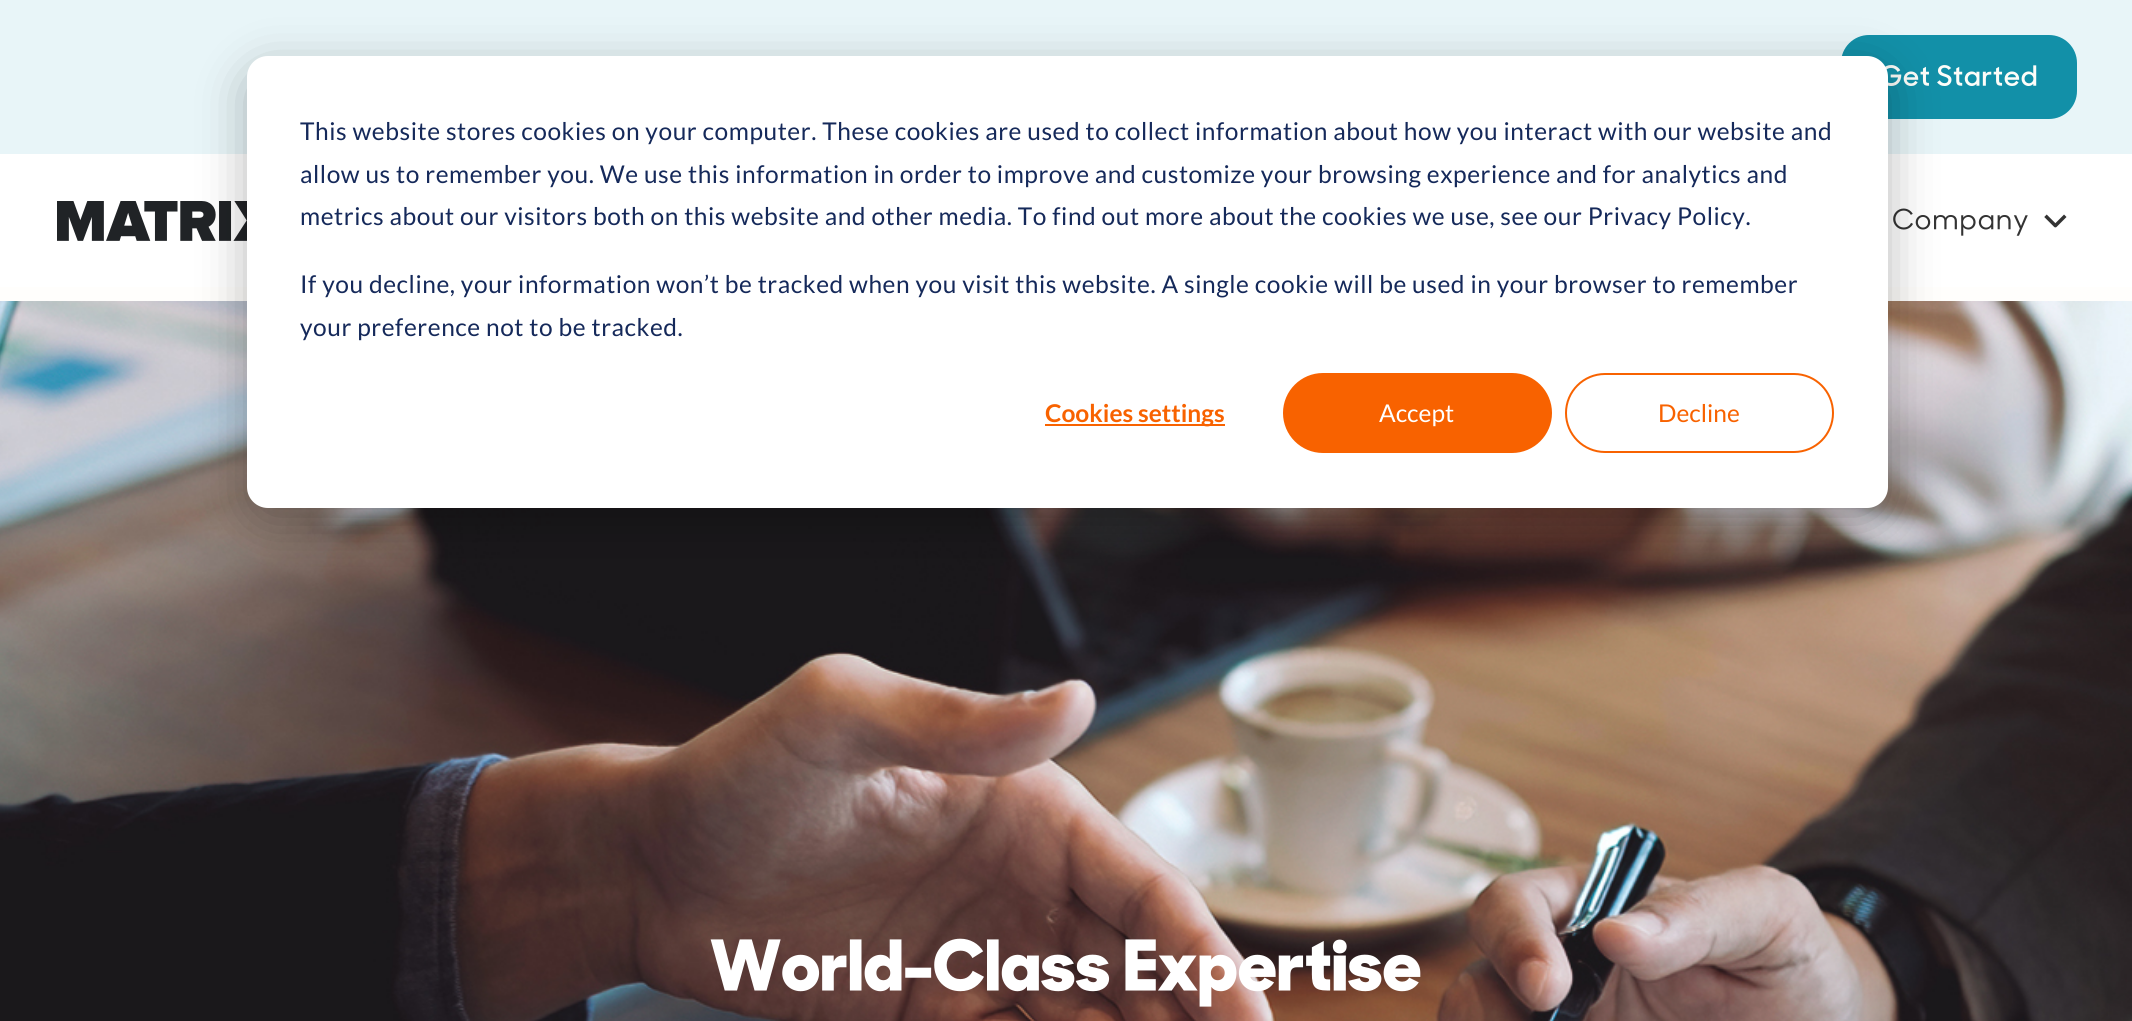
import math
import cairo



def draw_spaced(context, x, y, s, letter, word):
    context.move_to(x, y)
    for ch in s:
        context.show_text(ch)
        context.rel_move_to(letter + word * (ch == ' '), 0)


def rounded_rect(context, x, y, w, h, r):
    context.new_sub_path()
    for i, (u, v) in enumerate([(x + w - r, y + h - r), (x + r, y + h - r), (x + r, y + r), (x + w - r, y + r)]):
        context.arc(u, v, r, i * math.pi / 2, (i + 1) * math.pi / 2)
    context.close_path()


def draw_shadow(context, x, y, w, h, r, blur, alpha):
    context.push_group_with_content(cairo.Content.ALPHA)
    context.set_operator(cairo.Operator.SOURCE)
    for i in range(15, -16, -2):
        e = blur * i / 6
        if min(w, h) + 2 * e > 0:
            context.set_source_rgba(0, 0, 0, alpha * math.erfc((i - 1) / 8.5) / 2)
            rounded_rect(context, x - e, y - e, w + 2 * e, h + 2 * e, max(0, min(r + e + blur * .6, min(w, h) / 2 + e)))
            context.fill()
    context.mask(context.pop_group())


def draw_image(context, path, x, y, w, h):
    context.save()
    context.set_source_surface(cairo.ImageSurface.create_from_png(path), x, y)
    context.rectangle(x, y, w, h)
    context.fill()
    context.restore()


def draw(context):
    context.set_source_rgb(1, 254 / 255, 252 / 255)
    context.paint()
    context.set_source_rgb(1, 1, 1)
    context.rectangle(0, 154, 2132, 133)
    context.fill()
    context.set_source_rgb(232 / 255, 245 / 255, 248 / 255)
    context.rectangle(0, 0, 2132, 154)
    context.fill()
    context.set_source_rgb(18 / 255, 144 / 255, 168 / 255)
    rounded_rect(context, 1841, 35, 236, 84, 28)
    context.fill()
    draw_image(context, "images/1.png", 1885, 65, 152, 21)
    draw_image(context, "images/2.png", 57, 201, 190, 40)
    draw_image(context, "images/3.png", 1893, 208, 135, 28)
    draw_image(context, "images/4.png", 2044, 214, 23, 14)
    draw_image(context, "images/5.png", 0, 301, 2132, 720)
    draw_image(context, "images/6.png", 710, 938, 711, 69)
    context.set_source_rgb(0, 0, 0)
    draw_shadow(context, 247, 70, 1641, 452, 21, 24.5, 0.28)
    context.set_source_rgb(1, 1, 1)
    rounded_rect(context, 247, 56, 1641, 452, 21)
    context.fill()
    context.set_source_rgb(248 / 255, 98 / 255, 0)
    context.rectangle(1045, 424, 180, 2)
    context.fill()
    rounded_rect(context, 1284, 374, 267, 78, 39)
    context.fill_preserve()
    context.stroke()
    rounded_rect(context, 1566, 374, 267, 78, 39)
    context.stroke()
    context.select_font_face("Lato")
    context.set_font_size(24.5)
    context.set_source_rgb(21 / 255, 41 / 255, 90 / 255)
    draw_spaced(context, 300, 140, "This website stores cookies on your computer. These cookies are used to collect information about how you interact with our website and", 0.56, 0)
    draw_spaced(context, 300, 183, "allow us to remember you. We use this information in order to improve and customize your browsing experience and for analytics and", 0.56, 0)
    draw_spaced(context, 300, 225, "metrics about our visitors both on this website and other media. To find out more about the cookies we use, see our Privacy Policy.", 0.56, 0)
    draw_spaced(context, 300, 293, "If you decline, your information won’t be tracked when you visit this website. A single cookie will be used in your browser to remember", 0.56, 0)
    draw_spaced(context, 300, 336, "your preference not to be tracked.", 0.56, 0)
    context.select_font_face("Lato", cairo.FontSlant.NORMAL, cairo.FontWeight.BOLD)
    context.set_source_rgb(248 / 255, 98 / 255, 0)
    context.move_to(1045, 422)
    context.show_text("Cookies settings")
    context.select_font_face("Lato")
    context.set_source_rgb(1, 1, 1)
    context.move_to(1379, 422)
    context.show_text("Accept")
    context.set_source_rgb(248 / 255, 98 / 255, 0)
    context.move_to(1658, 422)
    context.show_text("Decline")


surface = cairo.ImageSurface(cairo.Format.RGB24, 2132, 1021)
context = cairo.Context(surface)
options = cairo.FontOptions()
options.set_hint_metrics(cairo.HintMetrics.OFF)
options.set_hint_style(cairo.HintStyle.NONE)
context.set_font_options(options)
context.set_miter_limit(4)
draw(context)
surface.write_to_png("out.png")
